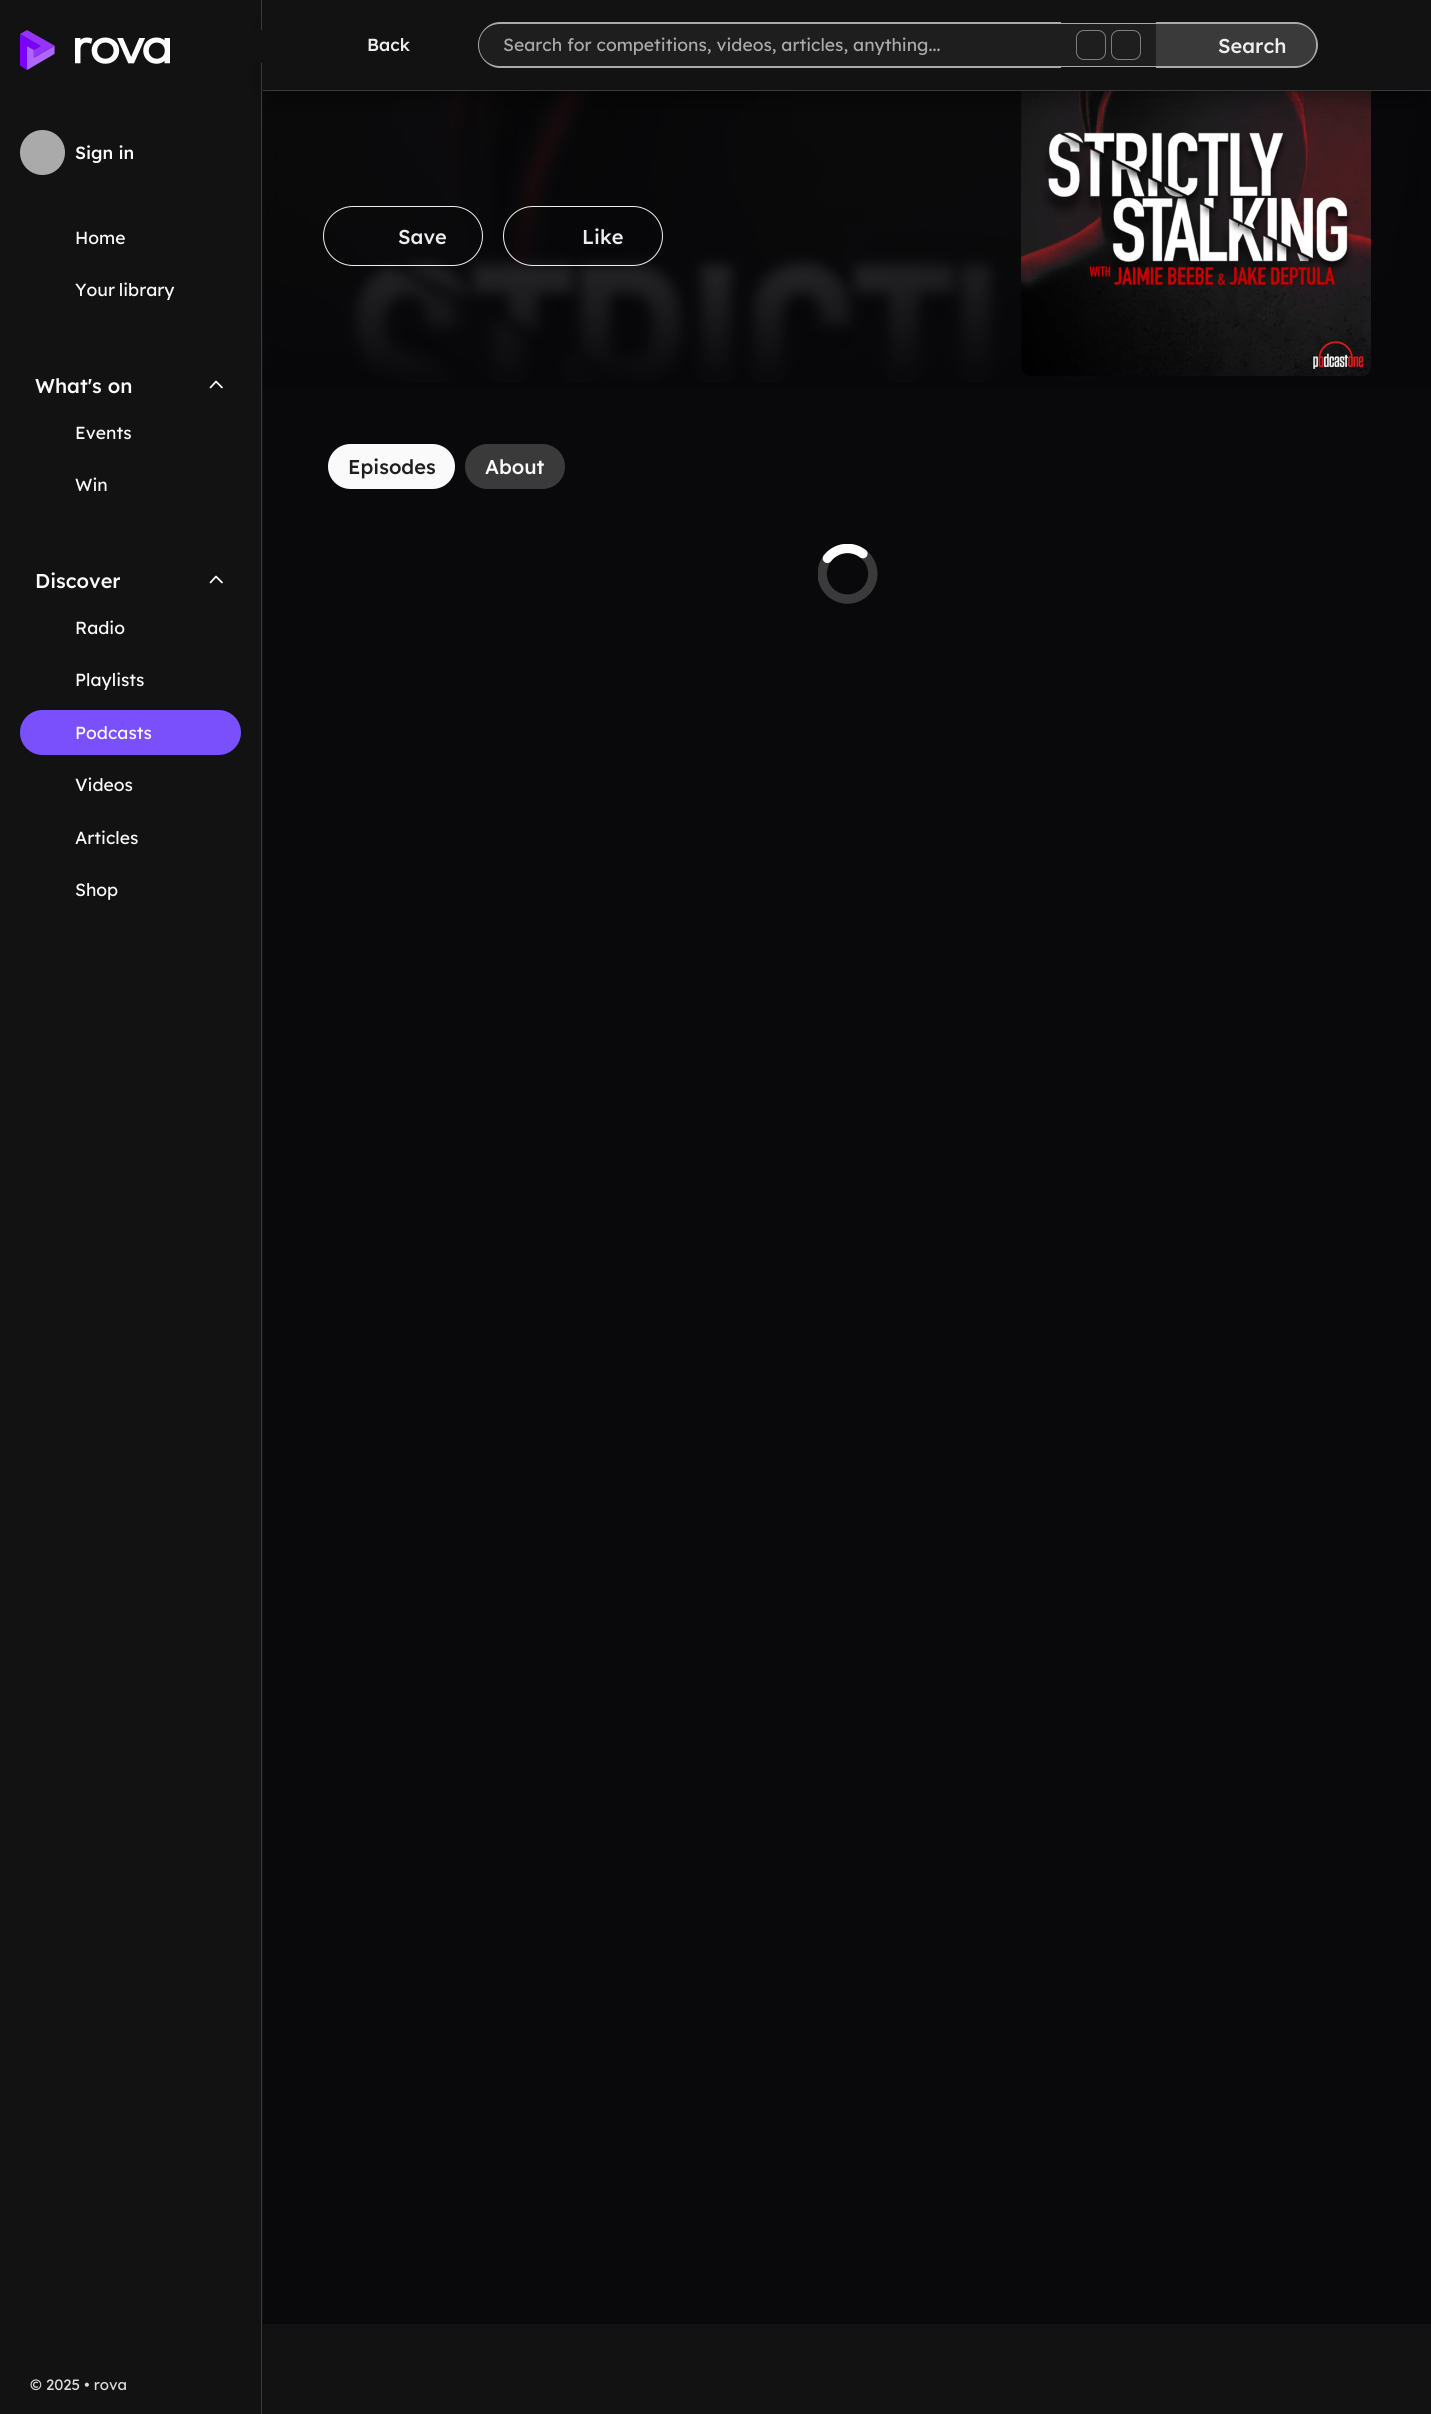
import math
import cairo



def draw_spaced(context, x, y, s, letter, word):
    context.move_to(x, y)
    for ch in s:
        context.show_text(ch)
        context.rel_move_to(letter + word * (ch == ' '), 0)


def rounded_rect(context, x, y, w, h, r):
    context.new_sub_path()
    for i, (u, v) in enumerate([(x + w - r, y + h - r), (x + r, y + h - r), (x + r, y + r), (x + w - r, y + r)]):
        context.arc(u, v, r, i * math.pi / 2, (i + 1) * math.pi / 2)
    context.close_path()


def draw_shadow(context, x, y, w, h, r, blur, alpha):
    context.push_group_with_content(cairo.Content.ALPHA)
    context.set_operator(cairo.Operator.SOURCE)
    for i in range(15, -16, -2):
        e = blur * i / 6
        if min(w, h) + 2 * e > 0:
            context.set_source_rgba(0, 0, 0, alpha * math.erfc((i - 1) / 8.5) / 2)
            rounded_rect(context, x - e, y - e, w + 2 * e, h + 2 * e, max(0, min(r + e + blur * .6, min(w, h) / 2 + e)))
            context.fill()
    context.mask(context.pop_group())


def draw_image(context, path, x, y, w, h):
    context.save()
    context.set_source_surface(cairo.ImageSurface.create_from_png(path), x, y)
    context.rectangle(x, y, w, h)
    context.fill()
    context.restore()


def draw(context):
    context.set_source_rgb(18 / 255, 18 / 255, 18 / 255)
    context.paint()
    draw_image(context, "images/2.png", 262, 91, 1169, 281)
    context.set_source_rgb(7 / 255, 7 / 255, 10 / 255)
    context.rectangle(263, 372, 1168, 17)
    context.fill()
    draw_image(context, "images/3.png", 262, 91, 1169, 291)
    draw_image(context, "images/4.png", 1021, 91, 350, 285)
    context.save()
    context.set_fill_rule(cairo.FillRule.EVEN_ODD)
    context.new_path()
    context.move_to(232, 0)
    context.line_to(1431, 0)
    context.line_to(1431, 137)
    context.line_to(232, 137)
    context.close_path()
    context.move_to(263, 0)
    context.line_to(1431, 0)
    context.line_to(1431, 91)
    context.line_to(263, 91)
    context.close_path()
    context.clip()
    context.set_source_rgb(0, 0, 0)
    draw_shadow(context, 278, 30, 1138, 61, 0, 15, 0.65)
    context.restore()
    context.set_source_rgb(58 / 255, 58 / 255, 58 / 255)
    context.rectangle(263, 90, 1168, 1)
    context.fill()
    context.set_source_rgb(30 / 255, 30 / 255, 30 / 255)
    context.new_path()
    context.move_to(500, 24)
    context.line_to(1061, 24)
    context.line_to(1061, 66)
    context.line_to(500, 66)
    context.curve_to(488.5, 66, 479, 56.5, 479, 45)
    context.curve_to(479, 33.5, 488.5, 24, 500, 24)
    context.close_path()
    context.fill()
    context.set_source_rgb(170 / 255, 170 / 255, 170 / 255)
    context.set_fill_rule(cairo.FillRule.EVEN_ODD)
    context.new_path()
    context.move_to(500, 22)
    context.line_to(1061, 22)
    context.line_to(1061, 68)
    context.line_to(500, 68)
    context.curve_to(488, 68, 478, 57, 478, 45)
    context.curve_to(478, 33, 488, 22, 500, 22)
    context.close_path()
    context.move_to(500, 24)
    context.line_to(1061, 24)
    context.line_to(1061, 66)
    context.line_to(500, 66)
    context.curve_to(488, 66, 479, 57, 479, 45)
    context.curve_to(479, 33, 488, 24, 500, 24)
    context.close_path()
    context.fill()
    context.set_source_rgb(30 / 255, 30 / 255, 30 / 255)
    context.rectangle(1061, 24, 95, 42)
    context.fill()
    context.set_source_rgb(170 / 255, 170 / 255, 170 / 255)
    context.rectangle(1061, 23, 95, 1)
    context.fill()
    context.rectangle(1061, 66, 95, 1)
    context.fill()
    rounded_rect(context, 1076.5, 30.5, 29, 29, 7.5)
    context.set_source_rgb(125 / 255, 125 / 255, 125 / 255)
    context.set_line_width(1)
    context.stroke()
    rounded_rect(context, 1111.5, 30.5, 29, 29, 7.5)
    context.stroke()
    context.set_source_rgb(58 / 255, 58 / 255, 58 / 255)
    context.new_path()
    context.move_to(1156, 24)
    context.line_to(1295, 24)
    context.curve_to(1306.5, 24, 1316, 33.5, 1316, 45)
    context.curve_to(1316, 56.5, 1306.5, 66, 1295, 66)
    context.line_to(1156, 66)
    context.close_path()
    context.fill()
    context.set_source_rgb(170 / 255, 170 / 255, 170 / 255)
    context.new_path()
    context.move_to(1156, 22)
    context.line_to(1295, 22)
    context.curve_to(1307, 22, 1318, 33, 1318, 45)
    context.curve_to(1318, 57, 1307, 68, 1295, 68)
    context.line_to(1156, 68)
    context.close_path()
    context.move_to(1156, 24)
    context.line_to(1295, 24)
    context.curve_to(1307, 24, 1316, 33, 1316, 45)
    context.curve_to(1316, 57, 1307, 66, 1295, 66)
    context.line_to(1156, 66)
    context.close_path()
    context.fill()
    context.set_source_rgb(58 / 255, 58 / 255, 58 / 255)
    context.rectangle(261, 0, 1, 2414)
    context.fill()
    draw_image(context, "images/1.png", 20, 30, 150, 40)
    context.set_source_rgb(18 / 255, 18 / 255, 18 / 255)
    context.arc(261.5, 46.5, 16.5, 0, 2 * math.pi)
    context.fill()
    context.set_source_rgb(170 / 255, 170 / 255, 170 / 255)
    context.arc(42.5, 152.5, 22.5, 0, 2 * math.pi)
    context.fill()
    context.new_path()
    context.move_to(210.5, 387.5)
    context.line_to(216, 381.5)
    context.line_to(222, 387.5)
    context.set_source_rgb(1, 1, 1)
    context.set_line_width(1.7)
    context.set_line_cap(cairo.LineCap.ROUND)
    context.set_line_join(cairo.LineJoin.ROUND)
    context.stroke()
    context.new_path()
    context.move_to(210.5, 582.5)
    context.line_to(216, 576.5)
    context.line_to(222, 582.5)
    context.stroke()
    context.set_source_rgb(122 / 255, 79 / 255, 252 / 255)
    rounded_rect(context, 20, 710, 221, 45, 22.5)
    context.fill()
    context.set_source_rgb(9 / 255, 9 / 255, 12 / 255)
    context.rectangle(263, 389, 1168, 1935)
    context.fill()
    rounded_rect(context, 323.5, 206.5, 159, 59, 29.5)
    context.set_source_rgb(237 / 255, 237 / 255, 237 / 255)
    context.set_line_width(1)
    context.set_line_cap(cairo.LineCap.BUTT)
    context.set_line_join(cairo.LineJoin.MITER)
    context.stroke()
    rounded_rect(context, 503.5, 206.5, 159, 59, 29.5)
    context.stroke()
    context.set_source_rgb(250 / 255, 250 / 255, 250 / 255)
    rounded_rect(context, 328, 444, 127, 45, 22.5)
    context.fill()
    context.set_source_rgb(58 / 255, 58 / 255, 58 / 255)
    rounded_rect(context, 465, 444, 100, 45, 22.5)
    context.fill()
    draw_image(context, "images/5.png", 818, 544, 60, 60)
    context.select_font_face("Lexend Medium")
    context.set_font_size(17.5)
    context.set_source_rgb(237 / 255, 237 / 255, 237 / 255)
    context.move_to(367, 51)
    context.show_text("Back")
    context.select_font_face("Lexend")
    context.set_source_rgb(170 / 255, 170 / 255, 170 / 255)
    context.move_to(503, 51)
    context.show_text("Search for competitions, videos, articles, anything...")
    context.select_font_face("Lexend Medium")
    context.set_font_size(20)
    context.set_source_rgb(237 / 255, 237 / 255, 237 / 255)
    context.move_to(1218, 53)
    context.show_text("Search")
    context.set_font_size(17.5)
    context.set_source_rgb(250 / 255, 250 / 255, 250 / 255)
    context.move_to(75, 159)
    context.show_text("Sign in")
    context.select_font_face("Lexend")
    context.move_to(75, 244)
    context.show_text("Home")
    draw_spaced(context, 75, 296, "Your library", 0, -1)
    context.select_font_face("Lexend Medium")
    context.set_font_size(20)
    context.move_to(35, 393)
    context.show_text("What's on")
    context.select_font_face("Lexend")
    context.set_font_size(17.5)
    context.move_to(75, 439)
    context.show_text("Events")
    context.move_to(75, 491)
    context.show_text("Win")
    context.save()
    context.set_fill_rule(cairo.FillRule.WINDING)
    context.rectangle(35, 568, 85, 25)
    context.clip()
    context.select_font_face("Lexend Medium")
    context.set_font_size(20)
    context.move_to(35, 588)
    context.show_text("Discover")
    context.restore()
    context.move_to(75, 634)
    context.show_text("Radio")
    context.move_to(75, 686)
    context.show_text("Playlists")
    context.move_to(75, 739)
    context.show_text("Podcasts")
    context.move_to(75, 791)
    context.show_text("Videos")
    context.move_to(75, 844)
    context.show_text("Articles")
    context.move_to(75, 896)
    context.show_text("Shop")
    context.set_font_size(15)
    context.set_source_rgb(219 / 255, 219 / 255, 219 / 255)
    context.move_to(30, 2390)
    context.show_text("© 2025 • rova")
    context.save()
    context.set_fill_rule(cairo.FillRule.WINDING)
    context.rectangle(399, 221, 47, 30)
    context.clip()
    context.select_font_face("Lexend Medium")
    context.set_font_size(20)
    context.set_source_rgb(237 / 255, 237 / 255, 237 / 255)
    context.move_to(398, 244)
    context.show_text("Save")
    context.restore()
    context.select_font_face("Lexend Medium")
    context.set_font_size(20)
    context.set_source_rgb(237 / 255, 237 / 255, 237 / 255)
    context.move_to(582, 244)
    context.show_text("Like")
    context.set_source_rgb(30 / 255, 30 / 255, 30 / 255)
    context.move_to(348, 474)
    context.show_text("Episodes")
    context.set_source_rgb(250 / 255, 250 / 255, 250 / 255)
    context.move_to(485, 474)
    context.show_text("About")


surface = cairo.ImageSurface(cairo.Format.RGB24, 1431, 2414)
context = cairo.Context(surface)
options = cairo.FontOptions()
options.set_hint_metrics(cairo.HintMetrics.OFF)
options.set_hint_style(cairo.HintStyle.NONE)
context.set_font_options(options)
context.set_miter_limit(4)
draw(context)
surface.write_to_png("out.png")
